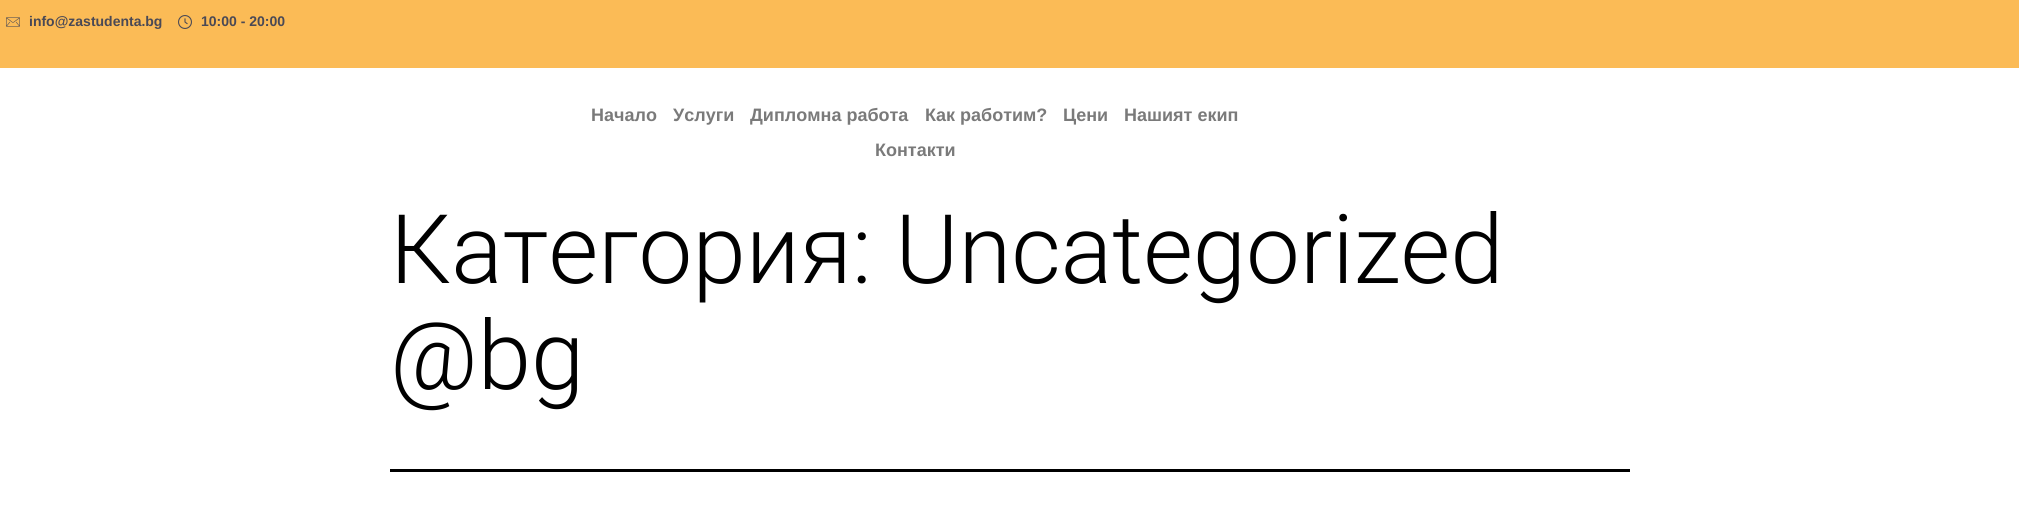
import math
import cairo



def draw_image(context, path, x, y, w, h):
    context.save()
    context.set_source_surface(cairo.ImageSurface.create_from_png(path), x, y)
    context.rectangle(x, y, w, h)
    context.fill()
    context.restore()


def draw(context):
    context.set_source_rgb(1, 1, 1)
    context.paint()
    context.set_source_rgb(251 / 255, 187 / 255, 86 / 255)
    context.rectangle(0, 0, 2019, 68)
    context.fill()
    draw_image(context, "images/1.png", 6, 17, 14, 10)
    draw_image(context, "images/2.png", 178, 15, 14, 14)
    context.set_source_rgb(0, 0, 0)
    context.rectangle(390, 469, 1240, 3)
    context.fill()
    context.select_font_face("Liberation Sans", cairo.FontSlant.NORMAL, cairo.FontWeight.BOLD)
    context.set_font_size(14)
    context.set_source_rgb(74 / 255, 73 / 255, 85 / 255)
    context.move_to(29, 26)
    context.show_text("info@zastudenta.bg")
    context.move_to(201, 26)
    context.show_text("10:00 - 20:00")
    context.set_font_size(18)
    context.set_source_rgb(122 / 255, 122 / 255, 122 / 255)
    context.move_to(591, 121)
    context.show_text("Начало")
    context.move_to(673, 121)
    context.show_text("Услуги")
    context.move_to(750, 121)
    context.show_text("Дипломнa работa")
    context.move_to(925, 121)
    context.show_text("Как работим?")
    context.move_to(1063, 121)
    context.show_text("Цени")
    context.move_to(1124, 121)
    context.show_text("Нашият екип")
    context.move_to(875, 156)
    context.show_text("Контакти")
    context.select_font_face("Roboto Light")
    context.set_font_size(96)
    context.set_source_rgb(0, 0, 0)
    context.move_to(390, 283)
    context.show_text("Категория: Uncategorized")
    context.move_to(390, 389)
    context.show_text("@bg")


surface = cairo.ImageSurface(cairo.Format.RGB24, 2019, 522)
context = cairo.Context(surface)
options = cairo.FontOptions()
options.set_hint_metrics(cairo.HintMetrics.OFF)
options.set_hint_style(cairo.HintStyle.NONE)
context.set_font_options(options)
context.set_miter_limit(4)
draw(context)
surface.write_to_png("out.png")
